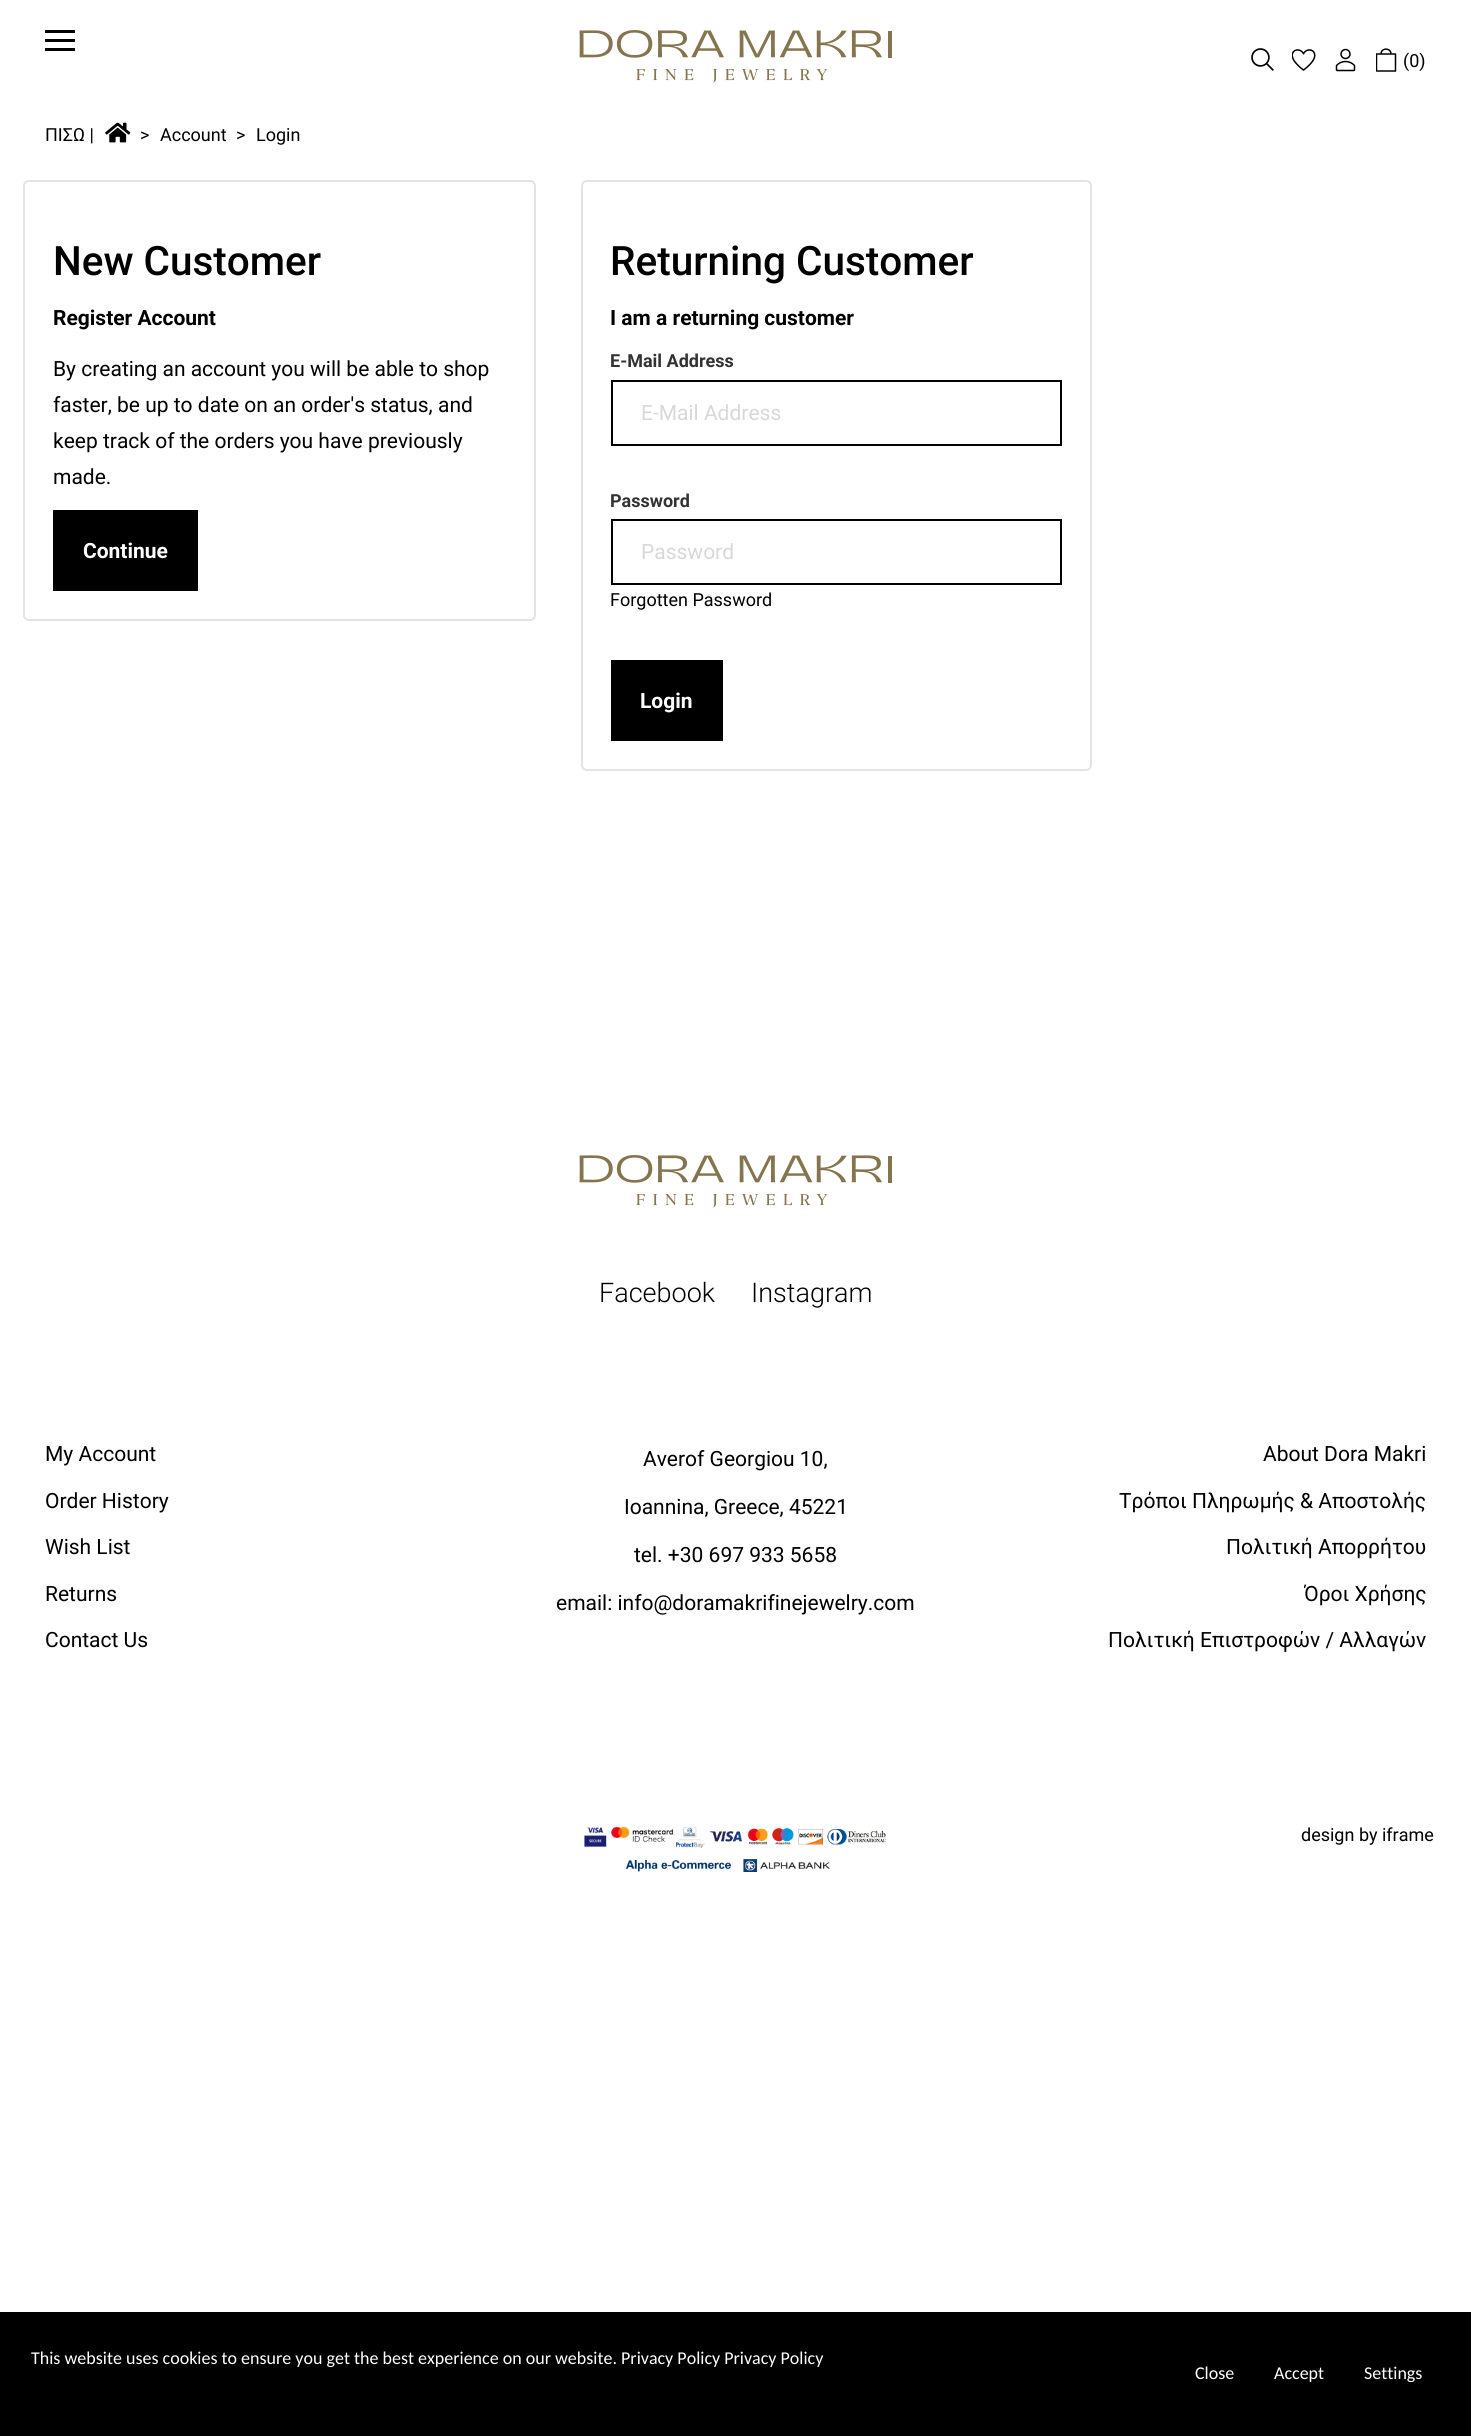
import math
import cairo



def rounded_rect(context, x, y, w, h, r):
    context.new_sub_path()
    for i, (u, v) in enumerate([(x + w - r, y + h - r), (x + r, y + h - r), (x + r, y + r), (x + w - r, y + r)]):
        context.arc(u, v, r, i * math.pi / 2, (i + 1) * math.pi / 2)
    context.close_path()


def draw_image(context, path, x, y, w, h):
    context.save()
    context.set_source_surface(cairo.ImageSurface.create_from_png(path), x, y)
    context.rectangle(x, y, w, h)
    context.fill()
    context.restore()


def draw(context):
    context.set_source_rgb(1, 1, 1)
    context.paint()
    context.set_source_rgb(0, 0, 0)
    context.rectangle(45, 30, 30, 3)
    context.fill()
    context.rectangle(45, 39, 30, 3)
    context.fill()
    context.rectangle(45, 48, 30, 3)
    context.fill()
    draw_image(context, "images/1.png", 579, 30, 313, 53)
    draw_image(context, "images/2.png", 1251, 48, 23, 23)
    draw_image(context, "images/3.png", 1292, 49, 24, 22)
    draw_image(context, "images/4.png", 1335, 48, 21, 24)
    context.save()
    context.rectangle(1376, 48, 21, 24)
    context.clip()
    context.new_path()
    context.move_to(1381, 54)
    context.curve_to(1381, 47.5, 1391, 47.5, 1391, 54)
    context.move_to(1376.5, 54)
    context.line_to(1376.5, 71)
    context.line_to(1395.5, 71)
    context.line_to(1395.5, 54)
    context.close_path()
    context.set_line_width(1.5)
    context.set_line_cap(cairo.LineCap.ROUND)
    context.set_line_join(cairo.LineJoin.ROUND)
    context.stroke()
    context.restore()
    draw_image(context, "images/5.png", 105, 122, 26, 21)
    rounded_rect(context, 24, 181, 511, 439, 5)
    context.set_source_rgb(227 / 255, 227 / 255, 227 / 255)
    context.stroke()
    context.set_source_rgb(0, 0, 0)
    context.rectangle(53, 510, 145, 81)
    context.fill()
    rounded_rect(context, 582, 181, 509, 589, 5)
    context.set_source_rgb(227 / 255, 227 / 255, 227 / 255)
    context.stroke()
    context.rectangle(612, 381, 449, 64)
    context.set_source_rgb(0, 0, 0)
    context.stroke()
    context.rectangle(612, 520, 449, 64)
    context.stroke()
    context.rectangle(611, 660, 112, 81)
    context.fill()
    draw_image(context, "images/1.png", 579, 1155, 313, 53)
    draw_image(context, "images/6.png", 584, 1826, 303, 46)
    context.rectangle(0, 2312, 1471, 124)
    context.fill()
    context.select_font_face("Roboto")
    context.set_font_size(18)
    context.move_to(1403, 67)
    context.show_text("(0)")
    context.move_to(45, 141)
    context.show_text("ΠΙΣΩ |")
    context.move_to(140, 141)
    context.show_text(">")
    context.move_to(160, 141)
    context.show_text("Account")
    context.move_to(236, 141)
    context.show_text(">")
    context.move_to(256, 141)
    context.show_text("Login")
    context.select_font_face("Roboto Medium")
    context.set_font_size(40.5)
    context.move_to(53, 275)
    context.show_text("New Customer")
    context.select_font_face("Roboto", cairo.FontSlant.NORMAL, cairo.FontWeight.BOLD)
    context.set_font_size(21)
    context.move_to(53, 325)
    context.show_text("Register Account")
    context.select_font_face("Roboto")
    context.move_to(53, 376)
    context.show_text("By creating an account you will be able to shop")
    context.move_to(53, 412)
    context.show_text("faster, be up to date on an order's status, and")
    context.move_to(53, 448)
    context.show_text("keep track of the orders you have previously")
    context.move_to(53, 484)
    context.show_text("made.")
    context.select_font_face("Roboto", cairo.FontSlant.NORMAL, cairo.FontWeight.BOLD)
    context.set_source_rgb(1, 1, 1)
    context.move_to(83, 558)
    context.show_text("Continue")
    context.select_font_face("Roboto Medium")
    context.set_font_size(40.5)
    context.set_source_rgb(0, 0, 0)
    context.move_to(610, 275)
    context.show_text("Returning Customer")
    context.select_font_face("Roboto", cairo.FontSlant.NORMAL, cairo.FontWeight.BOLD)
    context.set_font_size(21)
    context.move_to(610, 325)
    context.show_text("I am a returning customer")
    context.set_font_size(18)
    context.set_source_rgb(51 / 255, 51 / 255, 51 / 255)
    context.move_to(610, 367)
    context.show_text("E-Mail Address")
    context.select_font_face("Roboto")
    context.set_font_size(21)
    context.set_source_rgb(216 / 255, 216 / 255, 216 / 255)
    context.move_to(641, 420)
    context.show_text("E-Mail Address")
    context.select_font_face("Roboto", cairo.FontSlant.NORMAL, cairo.FontWeight.BOLD)
    context.set_font_size(18)
    context.set_source_rgb(51 / 255, 51 / 255, 51 / 255)
    context.move_to(610, 507)
    context.show_text("Password")
    context.select_font_face("Roboto")
    context.set_font_size(21)
    context.set_source_rgb(216 / 255, 216 / 255, 216 / 255)
    context.move_to(641, 559)
    context.show_text("Password")
    context.set_font_size(18)
    context.set_source_rgb(0, 0, 0)
    context.move_to(610, 606)
    context.show_text("Forgotten Password")
    context.select_font_face("Roboto", cairo.FontSlant.NORMAL, cairo.FontWeight.BOLD)
    context.set_font_size(21)
    context.set_source_rgb(1, 1, 1)
    context.move_to(640, 708)
    context.show_text("Login")
    context.select_font_face("Roboto Light")
    context.set_font_size(27)
    context.set_source_rgb(0, 0, 0)
    context.move_to(599, 1302)
    context.show_text("Facebook")
    context.move_to(751, 1302)
    context.show_text("Instagram")
    context.select_font_face("Roboto")
    context.set_font_size(21)
    context.move_to(45, 1461)
    context.show_text("My Account")
    context.move_to(45, 1508)
    context.show_text("Order History")
    context.move_to(45, 1554)
    context.show_text("Wish List")
    context.move_to(45, 1601)
    context.show_text("Returns")
    context.move_to(45, 1647)
    context.show_text("Contact Us")
    context.move_to(643, 1466)
    context.show_text("Averof Georgiou 10,")
    context.move_to(624, 1514)
    context.show_text("Ioannina, Greece, 45221")
    context.move_to(634, 1562)
    context.show_text("tel. +30 697 933 5658")
    context.move_to(556, 1610)
    context.show_text("email: info@doramakrifinejewelry.com")
    context.move_to(1263, 1461)
    context.show_text("About Dora Makri")
    context.move_to(1119, 1508)
    context.show_text("Τρόποι Πληρωμής & Αποστολής")
    context.move_to(1226, 1554)
    context.show_text("Πολιτική Απορρήτου")
    context.move_to(1304, 1601)
    context.show_text("Όροι Χρήσης")
    context.move_to(1108, 1647)
    context.show_text("Πολιτική Επιστροφών / Αλλαγών")
    context.set_font_size(18)
    context.move_to(1301, 1841)
    context.show_text("design by iframe")
    context.select_font_face("Carlito")
    context.set_source_rgb(1, 1, 1)
    context.move_to(31, 2364)
    context.show_text("This website uses cookies to ensure you get the best experience on our website. Privacy Policy Privacy Policy")
    context.move_to(1195, 2379)
    context.show_text("Close")
    context.move_to(1274, 2379)
    context.show_text("Accept")
    context.move_to(1364, 2379)
    context.show_text("Settings")


surface = cairo.ImageSurface(cairo.Format.RGB24, 1471, 2436)
context = cairo.Context(surface)
options = cairo.FontOptions()
options.set_hint_metrics(cairo.HintMetrics.OFF)
options.set_hint_style(cairo.HintStyle.NONE)
context.set_font_options(options)
context.set_miter_limit(4)
draw(context)
surface.write_to_png("out.png")
